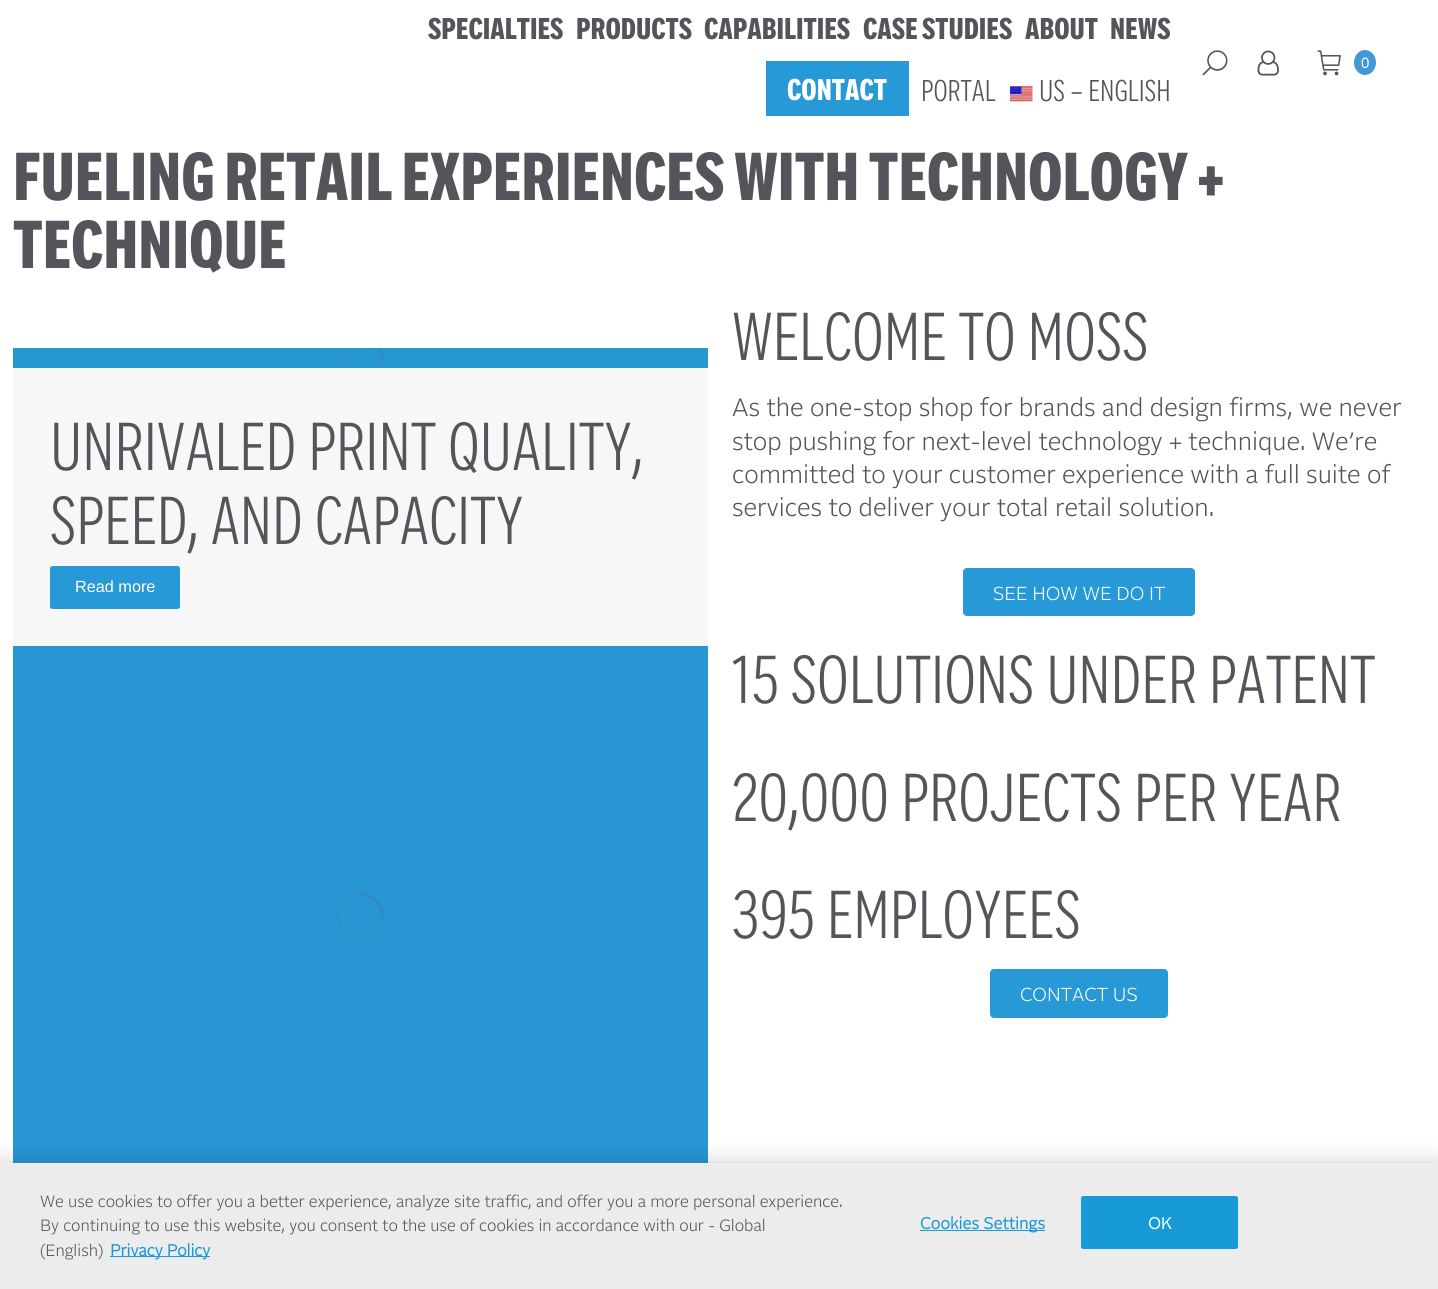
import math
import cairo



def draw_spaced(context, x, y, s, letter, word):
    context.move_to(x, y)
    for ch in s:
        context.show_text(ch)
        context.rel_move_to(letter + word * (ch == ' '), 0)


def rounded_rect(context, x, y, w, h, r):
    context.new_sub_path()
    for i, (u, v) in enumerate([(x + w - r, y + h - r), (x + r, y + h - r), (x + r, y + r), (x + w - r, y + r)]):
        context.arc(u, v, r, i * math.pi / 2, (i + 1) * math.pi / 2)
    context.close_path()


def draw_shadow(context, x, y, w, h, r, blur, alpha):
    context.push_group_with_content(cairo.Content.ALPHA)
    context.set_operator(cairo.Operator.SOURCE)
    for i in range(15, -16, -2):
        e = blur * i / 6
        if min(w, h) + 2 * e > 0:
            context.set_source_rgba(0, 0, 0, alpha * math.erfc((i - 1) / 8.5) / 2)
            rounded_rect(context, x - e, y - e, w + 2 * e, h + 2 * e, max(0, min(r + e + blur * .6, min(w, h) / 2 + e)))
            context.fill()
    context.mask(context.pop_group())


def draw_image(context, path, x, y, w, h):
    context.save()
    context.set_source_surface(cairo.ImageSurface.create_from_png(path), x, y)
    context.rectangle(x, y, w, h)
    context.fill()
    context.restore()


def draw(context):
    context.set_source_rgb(1, 1, 1)
    context.paint()
    context.set_source_rgb(38 / 255, 153 / 255, 214 / 255)
    context.rectangle(766, 61, 143, 55)
    context.fill()
    draw_image(context, "images/1.png", 1010, 86, 23, 16)
    draw_image(context, "images/2.png", 1202, 50, 26, 26)
    draw_image(context, "images/3.png", 1257, 50, 22, 26)
    draw_image(context, "images/4.png", 1317, 50, 24, 26)
    context.set_source_rgb(64 / 255, 153 / 255, 212 / 255)
    context.new_path()
    context.move_to(1365, 50)
    context.curve_to(1371, 50, 1376, 55.5, 1376, 62.5)
    context.curve_to(1376, 69.5, 1371, 75, 1365, 75)
    context.curve_to(1359, 75, 1354, 69.5, 1354, 62.5)
    context.curve_to(1354, 55.5, 1359, 50, 1365, 50)
    context.close_path()
    context.fill()
    context.set_source_rgb(247 / 255, 247 / 255, 247 / 255)
    context.rectangle(13, 368, 695, 278)
    context.fill()
    context.set_source_rgb(39 / 255, 151 / 255, 210 / 255)
    context.rectangle(13, 348, 695, 20)
    context.fill()
    context.save()
    context.rectangle(336, 348, 48, 20)
    context.clip()
    context.arc(360, 357.5, 22.5, 0, 2 * math.pi)
    context.set_source_rgb(43 / 255, 146 / 255, 200 / 255)
    context.set_line_width(2.5)
    context.stroke()
    context.new_path()
    context.move_to(382.5, 357.5)
    context.curve_to(382.5, 345, 372.5, 335, 360, 335)
    context.set_source_rgba(65 / 255, 112 / 255, 140 / 255, 0.25)
    context.stroke()
    context.restore()
    context.set_source_rgb(38 / 255, 153 / 255, 214 / 255)
    rounded_rect(context, 50, 566, 130, 43, 2.5)
    context.fill()
    context.set_source_rgb(39 / 255, 150 / 255, 211 / 255)
    context.rectangle(13, 646, 695, 517)
    context.fill()
    context.save()
    context.rectangle(336, 893, 48, 47)
    context.clip()
    context.arc(360, 916, 22.5, 0, 2 * math.pi)
    context.set_source_rgb(43 / 255, 145 / 255, 201 / 255)
    context.set_line_width(2.5)
    context.stroke()
    context.restore()
    context.new_path()
    context.move_to(382.5, 916)
    context.curve_to(382.5, 904, 372.5, 894, 360, 894)
    context.set_source_rgba(65 / 255, 112 / 255, 140 / 255, 0.25)
    context.set_line_width(2.5)
    context.stroke()
    context.set_source_rgb(38 / 255, 153 / 255, 214 / 255)
    rounded_rect(context, 963, 568, 232, 48, 4)
    context.fill()
    rounded_rect(context, 990, 969, 178, 49, 4)
    context.fill()
    context.set_source_rgb(0, 0, 0)
    draw_shadow(context, 0, 1163, 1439, 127, 0, 11, 0.2)
    context.set_source_rgb(236 / 255, 236 / 255, 237 / 255)
    context.rectangle(0, 1163, 1438, 126)
    context.fill()
    context.set_source_rgb(24 / 255, 154 / 255, 214 / 255)
    context.rectangle(110, 1256, 100, 1)
    context.fill()
    context.rectangle(920, 1230, 125, 1)
    context.fill()
    rounded_rect(context, 1081.5, 1196.5, 156, 52, 2)
    context.fill_preserve()
    context.set_line_width(1)
    context.stroke()
    context.select_font_face("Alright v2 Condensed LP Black")
    context.set_font_size(30)
    context.set_source_rgb(83 / 255, 85 / 255, 90 / 255)
    context.move_to(428, 39)
    context.show_text("SPECIALTIES")
    context.move_to(576, 39)
    context.show_text("PRODUCTS")
    context.move_to(704, 39)
    context.show_text("CAPABILITIES")
    context.move_to(863, 39)
    context.show_text("CASE STUDIES")
    context.move_to(1025, 39)
    context.show_text("ABOUT")
    context.move_to(1110, 39)
    context.show_text("NEWS")
    context.set_source_rgb(1, 1, 1)
    context.move_to(787, 100)
    context.show_text("CONTACT")
    context.select_font_face("Alright v2 Condensed LP Light")
    context.set_source_rgb(83 / 255, 85 / 255, 90 / 255)
    context.move_to(921, 101)
    context.show_text("PORTAL")
    context.move_to(1039, 101)
    context.show_text("US – ENGLISH")
    context.select_font_face("Liberation Sans")
    context.set_font_size(15)
    context.set_source_rgb(1, 1, 1)
    context.move_to(1361, 68)
    context.show_text("0")
    context.select_font_face("Alright v2 Condensed LP Black")
    context.set_font_size(67.5)
    context.set_source_rgb(83 / 255, 85 / 255, 90 / 255)
    context.move_to(13, 200)
    context.show_text("FUELING RETAIL EXPERIENCES WITH TECHNOLOGY +")
    context.move_to(13, 268)
    context.show_text("TECHNIQUE")
    context.select_font_face("Alright v2 Condensed LP Light")
    context.move_to(50, 470)
    context.show_text("UNRIVALED PRINT QUALITY,")
    context.move_to(50, 544)
    context.show_text("SPEED, AND CAPACITY")
    context.select_font_face("Liberation Sans")
    context.set_font_size(16.25)
    context.set_source_rgb(1, 1, 1)
    context.move_to(75, 592)
    context.show_text("Read more")
    context.select_font_face("Alright v2 Condensed LP Light")
    context.set_font_size(67.5)
    context.set_source_rgb(83 / 255, 85 / 255, 90 / 255)
    context.move_to(732, 360)
    context.show_text("WELCOME TO MOSS")
    context.select_font_face("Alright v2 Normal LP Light")
    context.set_font_size(25)
    context.move_to(732, 416)
    context.show_text("As the one-stop shop for brands and design firms, we never")
    context.move_to(732, 450)
    context.show_text("stop pushing for next-level technology + technique. We’re")
    context.move_to(732, 483)
    context.show_text("committed to your customer experience with a full suite of")
    context.move_to(732, 516)
    context.show_text("services to deliver your total retail solution.")
    context.set_font_size(18.75)
    context.set_source_rgb(1, 1, 1)
    context.move_to(993, 600)
    context.show_text("SEE HOW WE DO IT")
    context.select_font_face("Alright v2 Condensed LP Light")
    context.set_font_size(67.5)
    context.set_source_rgb(83 / 255, 85 / 255, 90 / 255)
    context.move_to(732, 703)
    context.show_text("15 SOLUTIONS UNDER PATENT")
    context.move_to(732, 821)
    context.show_text("20,000 PROJECTS PER YEAR")
    context.move_to(732, 938)
    context.show_text("395 EMPLOYEES")
    context.select_font_face("Alright v2 Normal LP Light")
    context.set_font_size(18.75)
    context.set_source_rgb(1, 1, 1)
    context.move_to(1020, 1001)
    context.show_text("CONTACT US")
    context.set_font_size(16.25)
    context.set_source_rgb(83 / 255, 85 / 255, 90 / 255)
    context.move_to(40, 1207)
    context.show_text("We use cookies to offer you a better experience, analyze site traffic, and offer you a more personal experience.")
    context.move_to(40, 1231)
    context.show_text("By continuing to use this website, you consent to the use of cookies in accordance with our - Global")
    context.move_to(40, 1256)
    context.show_text("(English)")
    context.select_font_face("Alright v2 Normal LP", cairo.FontSlant.NORMAL, cairo.FontWeight.BOLD)
    context.set_source_rgb(24 / 255, 154 / 255, 214 / 255)
    context.move_to(110, 1256)
    context.show_text("Privacy Policy")
    draw_spaced(context, 920, 1229, "Cookies Settings", 0.2, 0)
    context.set_source_rgb(1, 1, 1)
    draw_spaced(context, 1148, 1229, "OK", 0.2, 0)


surface = cairo.ImageSurface(cairo.Format.RGB24, 1438, 1289)
context = cairo.Context(surface)
options = cairo.FontOptions()
options.set_hint_metrics(cairo.HintMetrics.OFF)
options.set_hint_style(cairo.HintStyle.NONE)
context.set_font_options(options)
context.set_miter_limit(4)
draw(context)
surface.write_to_png("out.png")
